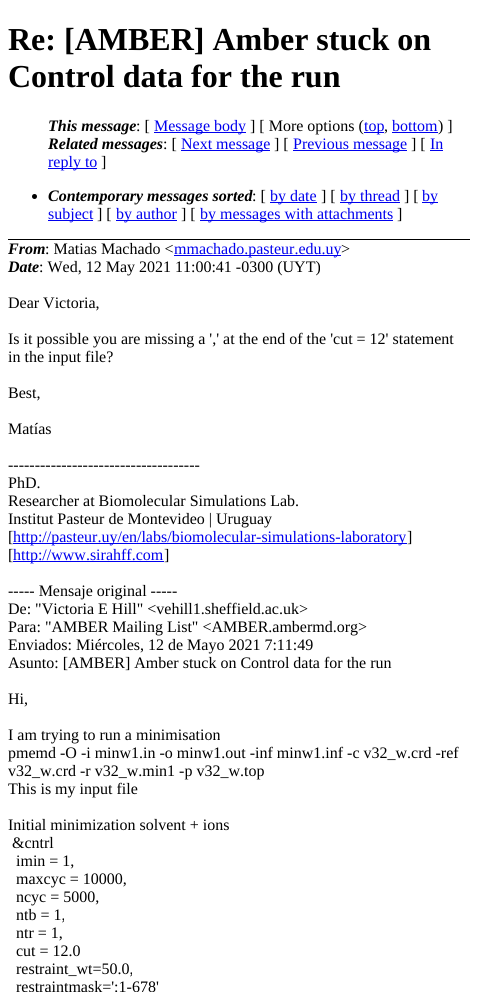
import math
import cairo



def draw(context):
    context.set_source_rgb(1, 1, 1)
    context.paint()
    context.set_source_rgb(0, 0, 0)
    context.rectangle(8, 239, 462, 1)
    context.fill()
    context.set_source_rgb(0, 0, 238 / 255)
    context.rectangle(154, 132, 92, 1)
    context.fill()
    context.rectangle(364, 132, 20, 1)
    context.fill()
    context.rectangle(392, 132, 46, 1)
    context.fill()
    context.rectangle(181, 150, 89, 1)
    context.fill()
    context.rectangle(293, 150, 114, 1)
    context.fill()
    context.rectangle(430, 150, 13, 1)
    context.fill()
    context.rectangle(48, 168, 49, 1)
    context.fill()
    context.set_source_rgb(0, 0, 0)
    context.arc(34.5, 196.5, 2.5, 0, 2 * math.pi)
    context.fill()
    context.set_source_rgb(0, 0, 238 / 255)
    context.rectangle(270, 202, 47, 1)
    context.fill()
    context.rectangle(340, 202, 60, 1)
    context.fill()
    context.rectangle(422, 202, 16, 1)
    context.fill()
    context.rectangle(48, 220, 45, 1)
    context.fill()
    context.rectangle(116, 220, 61, 1)
    context.fill()
    context.rectangle(200, 220, 193, 1)
    context.fill()
    context.rectangle(174, 255, 167, 1)
    context.fill()
    context.rectangle(13, 543, 394, 1)
    context.fill()
    context.rectangle(13, 561, 151, 1)
    context.fill()
    context.select_font_face("Liberation Serif", cairo.FontSlant.NORMAL, cairo.FontWeight.BOLD)
    context.set_font_size(32)
    context.set_source_rgb(0, 0, 0)
    context.move_to(8, 50)
    context.show_text("Re: [AMBER] Amber stuck on")
    context.move_to(8, 87)
    context.show_text("Control data for the run")
    context.select_font_face("Liberation Serif", cairo.FontSlant.ITALIC, cairo.FontWeight.BOLD)
    context.set_font_size(16)
    context.move_to(48, 131)
    context.show_text("This message")
    context.select_font_face("Liberation Serif")
    context.move_to(136, 131)
    context.show_text(": [")
    context.set_source_rgb(0, 0, 238 / 255)
    context.move_to(154, 131)
    context.show_text("Message body")
    context.set_source_rgb(0, 0, 0)
    context.move_to(250, 131)
    context.show_text("] [ More options (")
    context.set_source_rgb(0, 0, 238 / 255)
    context.move_to(364, 131)
    context.show_text("top")
    context.set_source_rgb(0, 0, 0)
    context.move_to(384, 131)
    context.show_text(",")
    context.set_source_rgb(0, 0, 238 / 255)
    context.move_to(392, 131)
    context.show_text("bottom")
    context.set_source_rgb(0, 0, 0)
    context.move_to(438, 131)
    context.show_text(") ]")
    context.select_font_face("Liberation Serif", cairo.FontSlant.ITALIC, cairo.FontWeight.BOLD)
    context.move_to(48, 149)
    context.show_text("Related messages")
    context.select_font_face("Liberation Serif")
    context.move_to(163, 149)
    context.show_text(": [")
    context.set_source_rgb(0, 0, 238 / 255)
    context.move_to(181, 149)
    context.show_text("Next message")
    context.set_source_rgb(0, 0, 0)
    context.move_to(274, 149)
    context.show_text("] [")
    context.set_source_rgb(0, 0, 238 / 255)
    context.move_to(293, 149)
    context.show_text("Previous message")
    context.set_source_rgb(0, 0, 0)
    context.move_to(411, 149)
    context.show_text("] [")
    context.set_source_rgb(0, 0, 238 / 255)
    context.move_to(430, 149)
    context.show_text("In")
    context.move_to(48, 167)
    context.show_text("reply to")
    context.set_source_rgb(0, 0, 0)
    context.move_to(101, 167)
    context.show_text("]")
    context.select_font_face("Liberation Serif", cairo.FontSlant.ITALIC, cairo.FontWeight.BOLD)
    context.move_to(48, 201)
    context.show_text("Contemporary messages sorted")
    context.select_font_face("Liberation Serif")
    context.move_to(252, 201)
    context.show_text(": [")
    context.set_source_rgb(0, 0, 238 / 255)
    context.move_to(270, 201)
    context.show_text("by date")
    context.set_source_rgb(0, 0, 0)
    context.move_to(321, 201)
    context.show_text("] [")
    context.set_source_rgb(0, 0, 238 / 255)
    context.move_to(340, 201)
    context.show_text("by thread")
    context.set_source_rgb(0, 0, 0)
    context.move_to(404, 201)
    context.show_text("] [")
    context.set_source_rgb(0, 0, 238 / 255)
    context.move_to(422, 201)
    context.show_text("by")
    context.move_to(48, 219)
    context.show_text("subject")
    context.set_source_rgb(0, 0, 0)
    context.move_to(97, 219)
    context.show_text("] [")
    context.set_source_rgb(0, 0, 238 / 255)
    context.move_to(116, 219)
    context.show_text("by author")
    context.set_source_rgb(0, 0, 0)
    context.move_to(181, 219)
    context.show_text("] [")
    context.set_source_rgb(0, 0, 238 / 255)
    context.move_to(200, 219)
    context.show_text("by messages with attachments")
    context.set_source_rgb(0, 0, 0)
    context.move_to(397, 219)
    context.show_text("]")
    context.select_font_face("Liberation Serif", cairo.FontSlant.ITALIC, cairo.FontWeight.BOLD)
    context.move_to(8, 254)
    context.show_text("From")
    context.select_font_face("Liberation Serif")
    context.move_to(45, 254)
    context.show_text(": Matias Machado <")
    context.set_source_rgb(0, 0, 238 / 255)
    context.move_to(174, 254)
    context.show_text("mmachado.pasteur.edu.uy")
    context.set_source_rgb(0, 0, 0)
    context.move_to(341, 254)
    context.show_text(">")
    context.select_font_face("Liberation Serif", cairo.FontSlant.ITALIC, cairo.FontWeight.BOLD)
    context.move_to(8, 272)
    context.show_text("Date")
    context.select_font_face("Liberation Serif")
    context.move_to(39, 272)
    context.show_text(": Wed, 12 May 2021 11:00:41 -0300 (UYT)")
    context.move_to(8, 308)
    context.show_text("Dear Victoria,")
    context.move_to(8, 344)
    context.show_text("Is it possible you are missing a ',' at the end of the 'cut = 12' statement")
    context.move_to(8, 362)
    context.show_text("in the input file?")
    context.move_to(8, 398)
    context.show_text("Best,")
    context.move_to(8, 434)
    context.show_text("Matías")
    context.move_to(8, 470)
    context.show_text("------------------------------------")
    context.move_to(8, 488)
    context.show_text("PhD.")
    context.move_to(8, 506)
    context.show_text("Researcher at Biomolecular Simulations Lab.")
    context.move_to(8, 524)
    context.show_text("Institut Pasteur de Montevideo | Uruguay")
    context.move_to(8, 542)
    context.show_text("[")
    context.set_source_rgb(0, 0, 238 / 255)
    context.move_to(13, 542)
    context.show_text("http://pasteur.uy/en/labs/biomolecular-simulations-laboratory")
    context.set_source_rgb(0, 0, 0)
    context.move_to(407, 542)
    context.show_text("]")
    context.move_to(8, 560)
    context.show_text("[")
    context.set_source_rgb(0, 0, 238 / 255)
    context.move_to(13, 560)
    context.show_text("http://www.sirahff.com")
    context.set_source_rgb(0, 0, 0)
    context.move_to(164, 560)
    context.show_text("]")
    context.move_to(8, 596)
    context.show_text("----- Mensaje original -----")
    context.move_to(8, 614)
    context.show_text("De: \"Victoria E Hill\" <vehill1.sheffield.ac.uk>")
    context.move_to(8, 632)
    context.show_text("Para: \"AMBER Mailing List\" <AMBER.ambermd.org>")
    context.move_to(8, 650)
    context.show_text("Enviados: Miércoles, 12 de Mayo 2021 7:11:49")
    context.move_to(8, 668)
    context.show_text("Asunto: [AMBER] Amber stuck on Control data for the run")
    context.move_to(8, 704)
    context.show_text("Hi,")
    context.move_to(8, 740)
    context.show_text("I am trying to run a minimisation")
    context.move_to(8, 758)
    context.show_text("pmemd -O -i minw1.in -o minw1.out -inf minw1.inf -c v32_w.crd -ref")
    context.move_to(8, 776)
    context.show_text("v32_w.crd -r v32_w.min1 -p v32_w.top")
    context.move_to(8, 794)
    context.show_text("This is my input file")
    context.move_to(8, 830)
    context.show_text("Initial minimization solvent + ions")
    context.move_to(12, 848)
    context.show_text("&cntrl")
    context.move_to(16, 866)
    context.show_text("imin = 1,")
    context.move_to(16, 884)
    context.show_text("maxcyc = 10000,")
    context.move_to(16, 902)
    context.show_text("ncyc = 5000,")
    context.move_to(16, 920)
    context.show_text("ntb = 1,")
    context.move_to(16, 938)
    context.show_text("ntr = 1,")
    context.move_to(16, 956)
    context.show_text("cut = 12.0")
    context.move_to(16, 974)
    context.show_text("restraint_wt=50.0,")
    context.move_to(16, 992)
    context.show_text("restraintmask=':1-678'")


surface = cairo.ImageSurface(cairo.Format.RGB24, 478, 992)
context = cairo.Context(surface)
options = cairo.FontOptions()
options.set_hint_metrics(cairo.HintMetrics.OFF)
options.set_hint_style(cairo.HintStyle.NONE)
context.set_font_options(options)
context.set_miter_limit(4)
draw(context)
surface.write_to_png("out.png")
